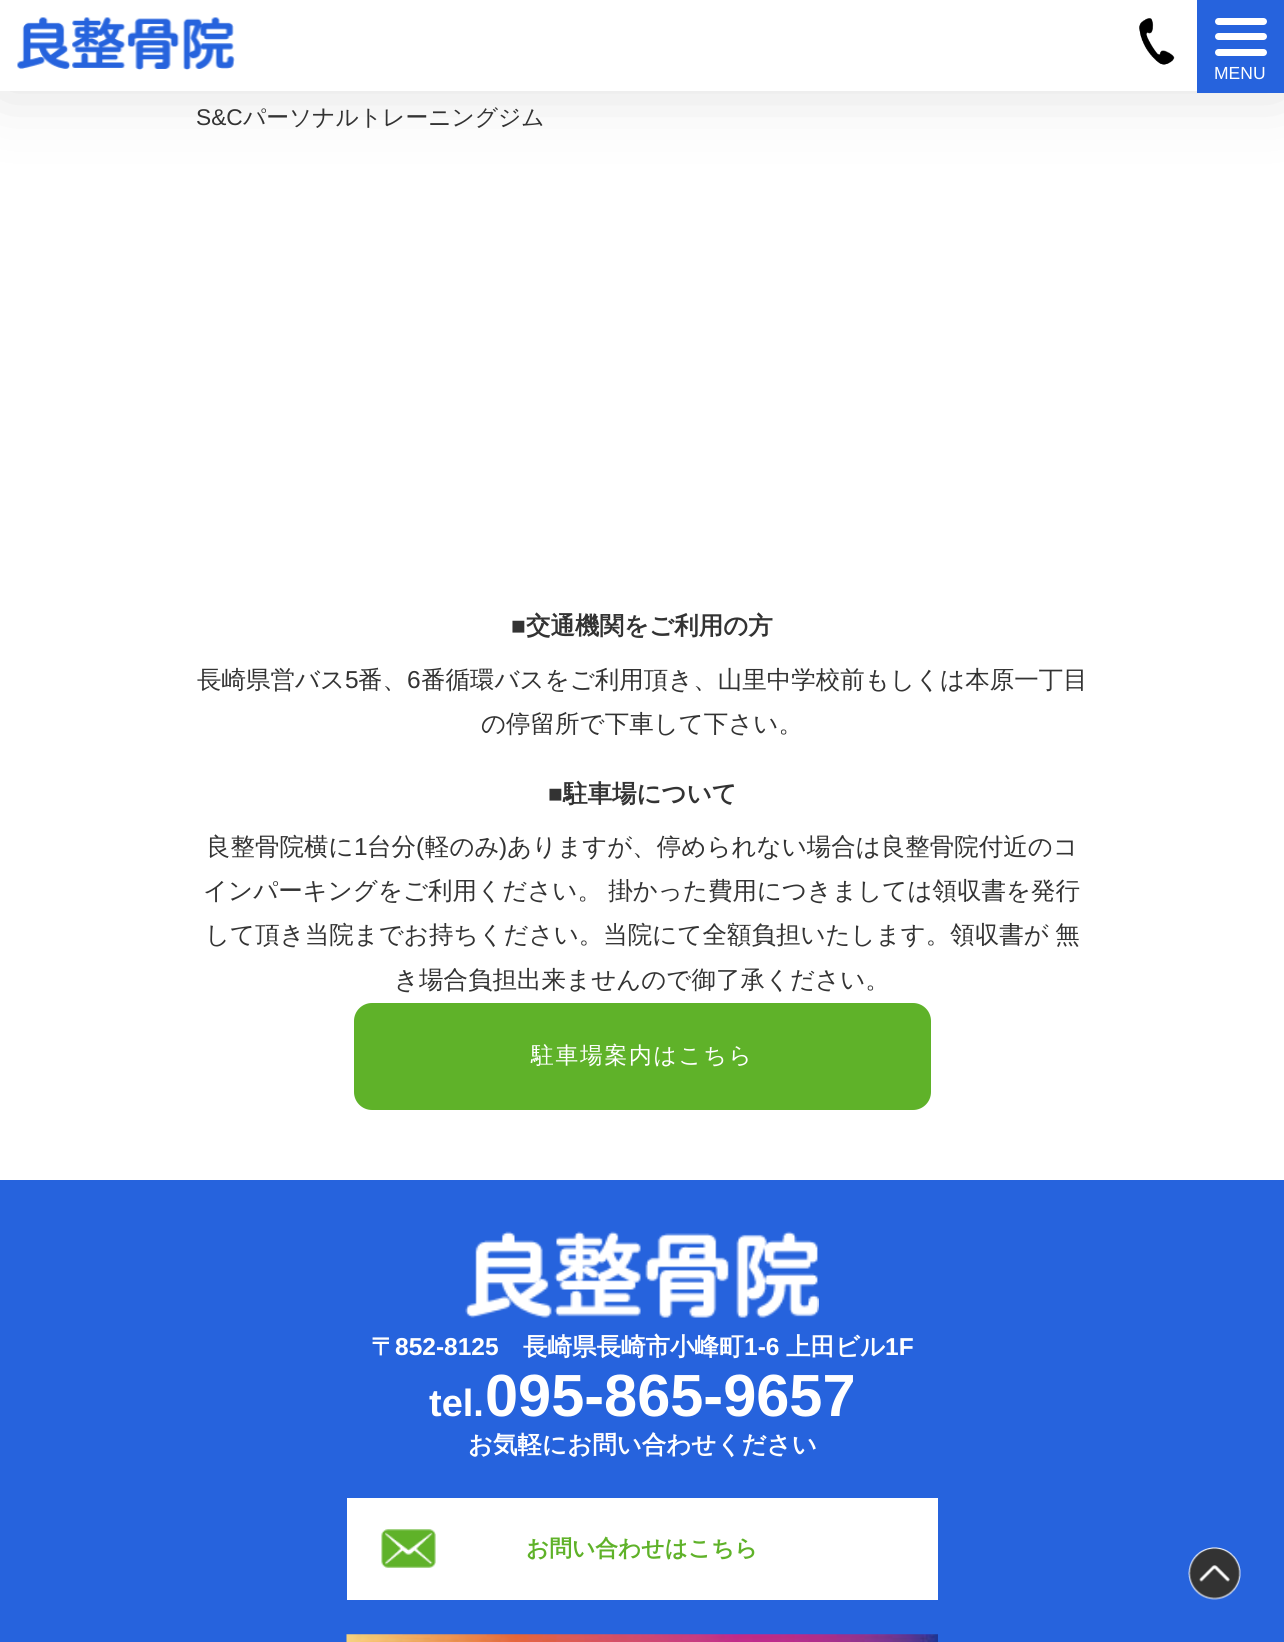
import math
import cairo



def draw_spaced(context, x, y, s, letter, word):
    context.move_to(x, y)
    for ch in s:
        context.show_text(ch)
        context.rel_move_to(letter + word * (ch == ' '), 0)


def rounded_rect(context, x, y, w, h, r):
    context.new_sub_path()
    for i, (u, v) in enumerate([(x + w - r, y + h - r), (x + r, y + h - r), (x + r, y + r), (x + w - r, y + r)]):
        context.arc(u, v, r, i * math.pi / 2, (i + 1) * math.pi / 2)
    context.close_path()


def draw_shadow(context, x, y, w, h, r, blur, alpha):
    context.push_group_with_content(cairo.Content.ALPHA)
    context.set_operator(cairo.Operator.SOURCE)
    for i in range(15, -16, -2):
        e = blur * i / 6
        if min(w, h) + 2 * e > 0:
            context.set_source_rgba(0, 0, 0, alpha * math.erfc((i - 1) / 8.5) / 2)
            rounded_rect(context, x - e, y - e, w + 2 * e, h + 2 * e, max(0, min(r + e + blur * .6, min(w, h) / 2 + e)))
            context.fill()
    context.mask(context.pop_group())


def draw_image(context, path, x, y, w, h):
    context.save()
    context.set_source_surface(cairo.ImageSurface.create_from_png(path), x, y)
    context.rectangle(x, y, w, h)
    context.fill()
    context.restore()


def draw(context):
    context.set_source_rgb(1, 1, 1)
    context.paint()
    context.set_source_rgb(221 / 255, 221 / 255, 221 / 255)
    draw_shadow(context, 0, -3, 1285, 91, 0, 35, 1)
    context.set_source_rgb(1, 1, 1)
    context.rectangle(0, 0, 1197, 91)
    context.fill()
    draw_image(context, "images/1.png", 17, 17, 218, 53)
    draw_image(context, "images/2.png", 1139, 18, 36, 47)
    context.set_source_rgb(38 / 255, 99 / 255, 221 / 255)
    context.rectangle(1197, 0, 87, 93)
    context.fill()
    context.set_source_rgb(1, 1, 1)
    rounded_rect(context, 1215, 18, 52, 7, 3.5)
    context.fill()
    rounded_rect(context, 1215, 33, 52, 7, 3.5)
    context.fill()
    rounded_rect(context, 1215, 49, 52, 7, 3.5)
    context.fill()
    context.set_source_rgb(95 / 255, 178 / 255, 41 / 255)
    rounded_rect(context, 355, 1004, 575, 105, 17)
    context.fill_preserve()
    context.stroke()
    context.set_source_rgb(38 / 255, 99 / 255, 221 / 255)
    context.rectangle(0, 1180, 1284, 462)
    context.fill()
    draw_image(context, "images/3.png", 465, 1231, 354, 87)
    context.set_source_rgb(1, 1, 1)
    context.rectangle(347, 1498, 591, 102)
    context.fill()
    draw_image(context, "images/4.png", 381, 1529, 55, 39)
    draw_image(context, "images/5.png", 346, 1634, 592, 8)
    draw_image(context, "images/6.png", 1188, 1547, 53, 53)
    context.select_font_face("Liberation Sans")
    context.set_font_size(17.5)
    context.move_to(1214, 79)
    context.show_text("MENU")
    context.set_font_size(22.75)
    context.set_source_rgb(51 / 255, 51 / 255, 51 / 255)
    context.move_to(196, 125)
    context.show_text("S&C")
    context.select_font_face("WenQuanYi Zen Hei Medium")
    context.move_to(243, 125)
    context.show_text("パーソナルトレーニングジム")
    context.select_font_face("Liberation Sans", cairo.FontSlant.NORMAL, cairo.FontWeight.BOLD)
    context.set_font_size(24.5)
    context.move_to(511, 634)
    context.show_text("■")
    context.select_font_face("WenQuanYi Zen Hei", cairo.FontSlant.NORMAL, cairo.FontWeight.BOLD)
    context.move_to(526, 634)
    context.show_text("交通機関をご利用の方")
    context.select_font_face("WenQuanYi Zen Hei Medium")
    context.move_to(197, 688)
    context.show_text("長崎県営バス")
    context.select_font_face("Liberation Sans")
    context.move_to(345, 688)
    context.show_text("5")
    context.select_font_face("WenQuanYi Zen Hei Medium")
    context.move_to(358, 688)
    context.show_text("番、")
    context.select_font_face("Liberation Sans")
    context.move_to(407, 688)
    context.show_text("6")
    context.select_font_face("WenQuanYi Zen Hei Medium")
    context.move_to(421, 688)
    context.show_text("番循環バスをご利用頂き、山里中学校前もしくは本原一丁目")
    context.move_to(481, 732)
    context.show_text("の停留所で下車して下さい。")
    context.select_font_face("Liberation Sans", cairo.FontSlant.NORMAL, cairo.FontWeight.BOLD)
    context.move_to(548, 802)
    context.show_text("■")
    context.select_font_face("WenQuanYi Zen Hei", cairo.FontSlant.NORMAL, cairo.FontWeight.BOLD)
    context.move_to(563, 802)
    context.show_text("駐車場について")
    context.select_font_face("WenQuanYi Zen Hei Medium")
    context.move_to(206, 855)
    context.show_text("良整骨院横に")
    context.select_font_face("Liberation Sans")
    context.move_to(354, 855)
    context.show_text("1")
    context.select_font_face("WenQuanYi Zen Hei Medium")
    context.move_to(367, 855)
    context.show_text("台分")
    context.select_font_face("Liberation Sans")
    context.move_to(416, 855)
    context.show_text("(")
    context.select_font_face("WenQuanYi Zen Hei Medium")
    context.move_to(425, 855)
    context.show_text("軽のみ")
    context.select_font_face("Liberation Sans")
    context.move_to(499, 855)
    context.show_text(")")
    context.select_font_face("WenQuanYi Zen Hei Medium")
    context.move_to(507, 855)
    context.show_text("ありますが、停められない場合は良整骨院付近のコ")
    draw_spaced(context, 203, 899, "インパーキングをご利用ください。 掛かった費用につきましては領収書を発行", 0, -1)
    draw_spaced(context, 205, 943, "して頂き当院までお持ちください。当院にて全額負担いたします。領収書が 無", 0, -1)
    context.move_to(394, 988)
    context.show_text("き場合負担出来ませんので御了承ください。")
    context.set_font_size(22.75)
    context.set_source_rgb(1, 1, 1)
    draw_spaced(context, 531, 1063, "駐車場案内はこちら", 1.75, 0)
    context.select_font_face("WenQuanYi Zen Hei", cairo.FontSlant.NORMAL, cairo.FontWeight.BOLD)
    context.set_font_size(24.5)
    context.move_to(371, 1355)
    context.show_text("〒")
    context.select_font_face("Liberation Sans", cairo.FontSlant.NORMAL, cairo.FontWeight.BOLD)
    context.move_to(395, 1355)
    context.show_text("852-8125")
    context.select_font_face("WenQuanYi Zen Hei", cairo.FontSlant.NORMAL, cairo.FontWeight.BOLD)
    context.move_to(523, 1355)
    context.show_text("長崎県長崎市小峰町")
    context.select_font_face("Liberation Sans", cairo.FontSlant.NORMAL, cairo.FontWeight.BOLD)
    context.move_to(744, 1355)
    context.show_text("1-6")
    context.select_font_face("WenQuanYi Zen Hei", cairo.FontSlant.NORMAL, cairo.FontWeight.BOLD)
    context.move_to(786, 1355)
    context.show_text("上田ビル")
    context.select_font_face("Liberation Sans", cairo.FontSlant.NORMAL, cairo.FontWeight.BOLD)
    context.move_to(885, 1355)
    context.show_text("1F")
    context.set_font_size(38)
    context.move_to(429, 1416)
    context.show_text("tel.")
    context.set_font_size(59.5)
    context.move_to(485, 1416)
    context.show_text("095-865-9657")
    context.select_font_face("WenQuanYi Zen Hei", cairo.FontSlant.NORMAL, cairo.FontWeight.BOLD)
    context.set_font_size(24.5)
    context.move_to(468, 1453)
    context.show_text("お気軽にお問い合わせください")
    context.set_font_size(22.75)
    context.set_source_rgb(95 / 255, 178 / 255, 41 / 255)
    context.move_to(526, 1556)
    context.show_text("お問い合わせはこちら")


surface = cairo.ImageSurface(cairo.Format.RGB24, 1284, 1642)
context = cairo.Context(surface)
options = cairo.FontOptions()
options.set_hint_metrics(cairo.HintMetrics.OFF)
options.set_hint_style(cairo.HintStyle.NONE)
context.set_font_options(options)
context.set_miter_limit(4)
draw(context)
surface.write_to_png("out.png")
